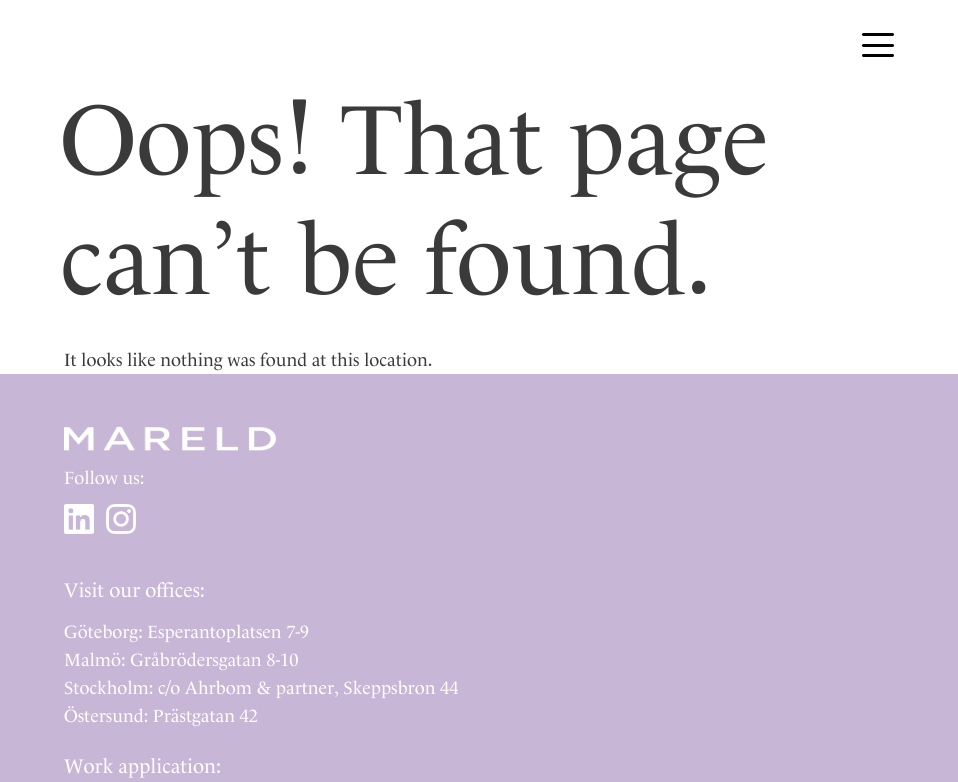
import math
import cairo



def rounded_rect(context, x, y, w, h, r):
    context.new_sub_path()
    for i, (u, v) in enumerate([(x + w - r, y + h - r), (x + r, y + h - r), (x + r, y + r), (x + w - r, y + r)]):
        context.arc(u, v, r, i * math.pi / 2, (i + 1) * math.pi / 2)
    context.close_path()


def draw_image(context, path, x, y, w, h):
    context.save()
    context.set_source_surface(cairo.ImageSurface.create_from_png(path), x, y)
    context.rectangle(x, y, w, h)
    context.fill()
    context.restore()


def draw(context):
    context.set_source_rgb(1, 1, 1)
    context.paint()
    context.set_source_rgb(0, 0, 0)
    rounded_rect(context, 862, 33, 32, 3, 1.5)
    context.fill()
    rounded_rect(context, 862, 44, 32, 3, 1.5)
    context.fill()
    rounded_rect(context, 862, 54, 32, 3, 1.5)
    context.fill()
    context.set_source_rgb(200 / 255, 182 / 255, 214 / 255)
    context.rectangle(0, 374, 958, 408)
    context.fill()
    draw_image(context, "images/1.png", 64, 426, 212, 25)
    draw_image(context, "images/2.png", 64, 504, 30, 30)
    draw_image(context, "images/3.png", 106, 504, 30, 30)
    context.select_font_face("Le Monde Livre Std")
    context.set_font_size(100)
    context.set_source_rgb(58 / 255, 58 / 255, 58 / 255)
    context.move_to(60, 174)
    context.show_text("Oops! That page")
    context.move_to(60, 294)
    context.show_text("can’t be found.")
    context.set_font_size(18)
    context.move_to(64, 366)
    context.show_text("It looks like nothing was found at this location.")
    context.set_source_rgb(1, 1, 1)
    context.move_to(64, 484)
    context.show_text("Follow us:")
    context.set_font_size(20)
    context.move_to(64, 597)
    context.show_text("Visit our offices:")
    context.set_font_size(18)
    context.move_to(64, 638)
    context.show_text("Göteborg: Esperantoplatsen 7-9")
    context.move_to(64, 666)
    context.show_text("Malmö: Gråbrödersgatan 8-10")
    context.move_to(64, 694)
    context.show_text("Stockholm: c/o Ahrbom & partner, Skeppsbron 44")
    context.move_to(64, 722)
    context.show_text("Östersund: Prästgatan 42")
    context.set_font_size(20)
    context.move_to(64, 773)
    context.show_text("Work application:")


surface = cairo.ImageSurface(cairo.Format.RGB24, 958, 782)
context = cairo.Context(surface)
options = cairo.FontOptions()
options.set_hint_metrics(cairo.HintMetrics.OFF)
options.set_hint_style(cairo.HintStyle.NONE)
context.set_font_options(options)
context.set_miter_limit(4)
draw(context)
surface.write_to_png("out.png")
